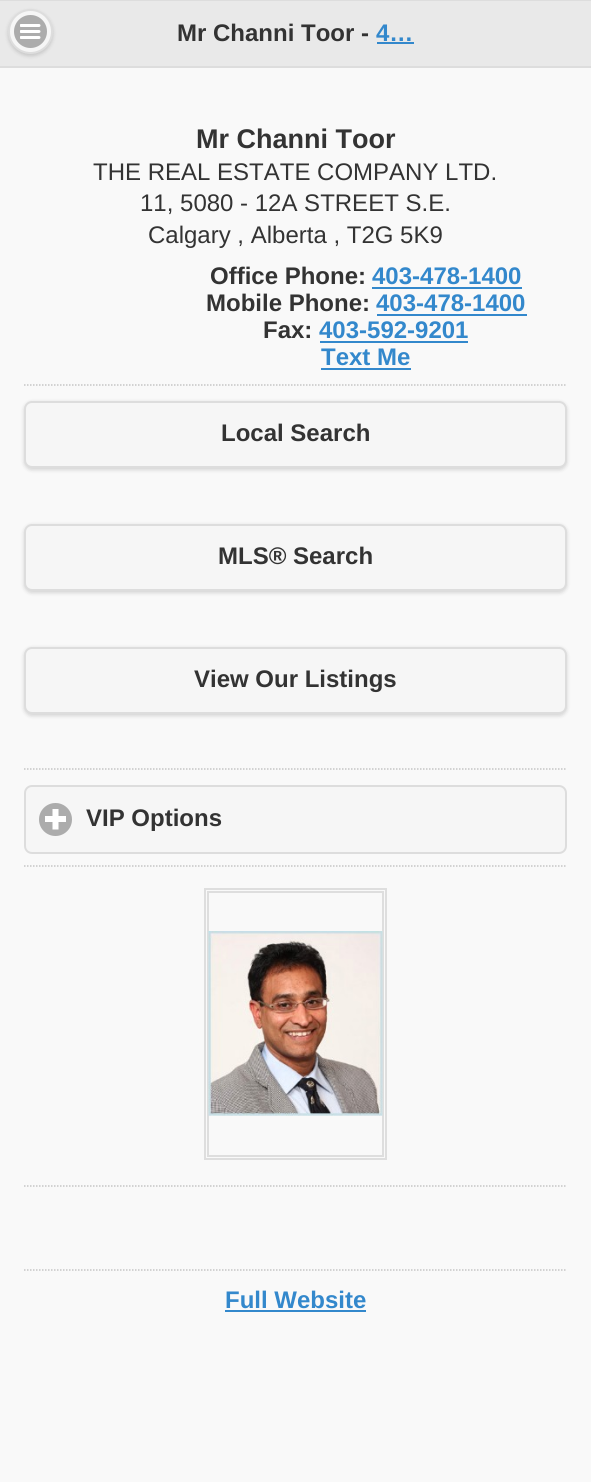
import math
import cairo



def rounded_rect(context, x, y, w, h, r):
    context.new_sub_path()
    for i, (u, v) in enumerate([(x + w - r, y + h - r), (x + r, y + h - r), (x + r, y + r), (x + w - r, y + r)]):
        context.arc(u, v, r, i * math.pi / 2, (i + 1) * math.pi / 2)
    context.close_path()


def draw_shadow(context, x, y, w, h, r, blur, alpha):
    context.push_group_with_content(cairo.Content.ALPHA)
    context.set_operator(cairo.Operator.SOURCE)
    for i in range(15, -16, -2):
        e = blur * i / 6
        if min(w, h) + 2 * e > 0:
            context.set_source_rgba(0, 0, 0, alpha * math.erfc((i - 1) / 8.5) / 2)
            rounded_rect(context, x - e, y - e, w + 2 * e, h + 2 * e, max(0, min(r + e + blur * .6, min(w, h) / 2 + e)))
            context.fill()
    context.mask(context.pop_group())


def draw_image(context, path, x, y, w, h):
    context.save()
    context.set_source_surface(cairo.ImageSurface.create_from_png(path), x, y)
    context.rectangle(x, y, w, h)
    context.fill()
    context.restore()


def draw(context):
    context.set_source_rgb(249 / 255, 249 / 255, 249 / 255)
    context.paint()
    context.set_source_rgb(233 / 255, 233 / 255, 233 / 255)
    context.rectangle(0, 1, 591, 65)
    context.fill()
    context.set_source_rgb(221 / 255, 221 / 255, 221 / 255)
    context.rectangle(0, 0, 591, 1)
    context.fill()
    context.rectangle(0, 66, 591, 2)
    context.fill()
    context.set_source_rgb(0, 0, 0)
    draw_shadow(context, 8, 11, 45, 45, 22.5, 2, 0.15)
    context.set_source_rgb(246 / 255, 246 / 255, 246 / 255)
    context.arc(30.5, 31.5, 21.5, 0, 2 * math.pi)
    context.fill_preserve()
    context.set_source_rgb(221 / 255, 221 / 255, 221 / 255)
    context.stroke()
    context.set_source_rgb(172 / 255, 172 / 255, 172 / 255)
    context.arc(30.5, 31.5, 16.5, 0, 2 * math.pi)
    context.fill()
    draw_image(context, "images/1.png", 20, 24, 21, 15)
    context.set_source_rgb(51 / 255, 136 / 255, 204 / 255)
    context.rectangle(377, 42, 37, 2)
    context.fill()
    context.rectangle(372, 287, 150, 2)
    context.fill()
    context.rectangle(377, 314, 150, 2)
    context.fill()
    context.rectangle(320, 341, 148, 2)
    context.fill()
    context.rectangle(321, 368, 90, 2)
    context.fill()
    context.new_path()
    context.move_to(24, 385)
    context.line_to(567, 385)
    context.set_source_rgb(197 / 255, 197 / 255, 197 / 255)
    context.set_line_width(1.5)
    context.set_dash([1.5, 1.5])
    context.stroke()
    context.set_source_rgb(0, 0, 0)
    draw_shadow(context, 24, 402, 543, 68, 8, 2, 0.15)
    context.set_source_rgb(246 / 255, 246 / 255, 246 / 255)
    rounded_rect(context, 25, 402, 541, 65, 7)
    context.fill_preserve()
    context.set_source_rgb(221 / 255, 221 / 255, 221 / 255)
    context.set_line_width(2)
    context.set_dash([])
    context.stroke()
    context.set_source_rgb(0, 0, 0)
    draw_shadow(context, 24, 525, 543, 68, 8, 2, 0.15)
    context.set_source_rgb(246 / 255, 246 / 255, 246 / 255)
    rounded_rect(context, 25, 525, 541, 65, 7)
    context.fill_preserve()
    context.set_source_rgb(221 / 255, 221 / 255, 221 / 255)
    context.stroke()
    context.set_source_rgb(0, 0, 0)
    draw_shadow(context, 24, 648, 543, 68, 8, 2, 0.15)
    context.set_source_rgb(246 / 255, 246 / 255, 246 / 255)
    rounded_rect(context, 25, 648, 541, 65, 7)
    context.fill_preserve()
    context.set_source_rgb(221 / 255, 221 / 255, 221 / 255)
    context.stroke()
    context.new_path()
    context.move_to(24, 769)
    context.line_to(567, 769)
    context.set_source_rgb(197 / 255, 197 / 255, 197 / 255)
    context.set_line_width(1.5)
    context.set_dash([1.5, 1.5])
    context.stroke()
    context.set_source_rgb(246 / 255, 246 / 255, 246 / 255)
    rounded_rect(context, 25, 786, 541, 67, 7)
    context.fill_preserve()
    context.set_source_rgb(221 / 255, 221 / 255, 221 / 255)
    context.set_line_width(2)
    context.set_dash([])
    context.stroke()
    context.set_source_rgb(172 / 255, 172 / 255, 172 / 255)
    context.arc(55.5, 819.5, 16.5, 0, 2 * math.pi)
    context.fill()
    draw_image(context, "images/2.png", 45, 809, 21, 21)
    context.new_path()
    context.move_to(24, 866)
    context.line_to(567, 866)
    context.set_source_rgb(197 / 255, 197 / 255, 197 / 255)
    context.set_line_width(1.5)
    context.set_dash([1.5, 1.5])
    context.stroke()
    context.rectangle(205, 889, 181, 270)
    context.set_source_rgb(222 / 255, 222 / 255, 222 / 255)
    context.set_line_width(2)
    context.set_dash([])
    context.stroke()
    context.rectangle(208, 892, 175, 264)
    context.stroke()
    draw_image(context, "images/3.png", 208, 931, 175, 185)
    context.new_path()
    context.move_to(24, 1186)
    context.line_to(567, 1186)
    context.set_source_rgb(197 / 255, 197 / 255, 197 / 255)
    context.set_line_width(1.5)
    context.set_dash([1.5, 1.5])
    context.stroke()
    context.new_path()
    context.move_to(24, 1270)
    context.line_to(567, 1270)
    context.stroke()
    context.set_source_rgb(51 / 255, 136 / 255, 204 / 255)
    context.rectangle(225, 1310, 141, 2)
    context.fill()
    context.select_font_face("Liberation Sans", cairo.FontSlant.NORMAL, cairo.FontWeight.BOLD)
    context.set_font_size(24)
    context.set_source_rgb(51 / 255, 51 / 255, 51 / 255)
    context.move_to(177, 41)
    context.show_text("Mr Channi Toor -")
    context.set_source_rgb(51 / 255, 136 / 255, 204 / 255)
    context.move_to(376, 41)
    context.show_text("4…")
    context.set_font_size(27)
    context.set_source_rgb(51 / 255, 51 / 255, 51 / 255)
    context.move_to(196, 148)
    context.show_text("Mr Channi Toor")
    context.select_font_face("Liberation Sans")
    context.set_font_size(24)
    context.move_to(93, 180)
    context.show_text("THE REAL ESTATE COMPANY LTD.")
    context.move_to(140, 211)
    context.show_text("11, 5080 - 12A STREET S.E.")
    context.move_to(148, 243)
    context.show_text("Calgary , Alberta , T2G 5K9")
    context.select_font_face("Liberation Sans", cairo.FontSlant.NORMAL, cairo.FontWeight.BOLD)
    context.move_to(210, 284)
    context.show_text("Office Phone:")
    context.set_source_rgb(51 / 255, 136 / 255, 204 / 255)
    context.move_to(372, 284)
    context.show_text("403-478-1400")
    context.set_source_rgb(51 / 255, 51 / 255, 51 / 255)
    context.move_to(206, 311)
    context.show_text("Mobile Phone:")
    context.set_source_rgb(51 / 255, 136 / 255, 204 / 255)
    context.move_to(376, 311)
    context.show_text("403-478-1400")
    context.set_source_rgb(51 / 255, 51 / 255, 51 / 255)
    context.move_to(263, 338)
    context.show_text("Fax:")
    context.set_source_rgb(51 / 255, 136 / 255, 204 / 255)
    context.move_to(319, 338)
    context.show_text("403-592-9201")
    context.move_to(321, 365)
    context.show_text("Text Me")
    context.set_source_rgb(51 / 255, 51 / 255, 51 / 255)
    context.move_to(221, 441)
    context.show_text("Local Search")
    context.move_to(218, 564)
    context.show_text("MLS® Search")
    context.move_to(194, 687)
    context.show_text("View Our Listings")
    context.move_to(86, 826)
    context.show_text("VIP Options")
    context.set_source_rgb(51 / 255, 136 / 255, 204 / 255)
    context.move_to(225, 1308)
    context.show_text("Full Website")


surface = cairo.ImageSurface(cairo.Format.RGB24, 591, 1482)
context = cairo.Context(surface)
options = cairo.FontOptions()
options.set_hint_metrics(cairo.HintMetrics.OFF)
options.set_hint_style(cairo.HintStyle.NONE)
context.set_font_options(options)
context.set_miter_limit(4)
draw(context)
surface.write_to_png("out.png")
